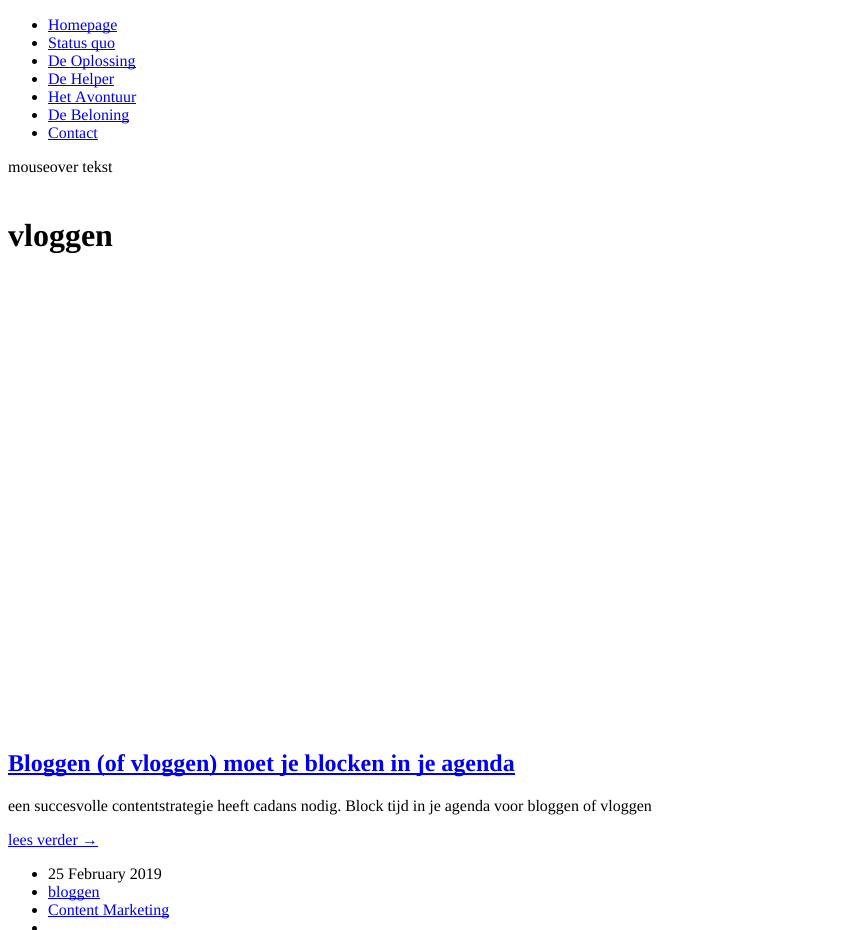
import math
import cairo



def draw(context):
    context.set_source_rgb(1, 1, 1)
    context.paint()
    context.set_source_rgb(0, 0, 0)
    context.arc(34.5, 25.5, 2.5, 0, 2 * math.pi)
    context.fill()
    context.set_source_rgb(0, 0, 238 / 255)
    context.rectangle(48, 31, 69, 1)
    context.fill()
    context.set_source_rgb(0, 0, 0)
    context.arc(34.5, 43.5, 2.5, 0, 2 * math.pi)
    context.fill()
    context.set_source_rgb(0, 0, 238 / 255)
    context.rectangle(48, 49, 67, 1)
    context.fill()
    context.set_source_rgb(0, 0, 0)
    context.arc(34.5, 61.5, 2.5, 0, 2 * math.pi)
    context.fill()
    context.set_source_rgb(0, 0, 238 / 255)
    context.rectangle(48, 67, 88, 1)
    context.fill()
    context.set_source_rgb(0, 0, 0)
    context.arc(34.5, 79.5, 2.5, 0, 2 * math.pi)
    context.fill()
    context.set_source_rgb(0, 0, 238 / 255)
    context.rectangle(48, 85, 66, 1)
    context.fill()
    context.set_source_rgb(0, 0, 0)
    context.arc(34.5, 97.5, 2.5, 0, 2 * math.pi)
    context.fill()
    context.set_source_rgb(0, 0, 238 / 255)
    context.rectangle(48, 103, 88, 1)
    context.fill()
    context.set_source_rgb(0, 0, 0)
    context.arc(34.5, 115.5, 2.5, 0, 2 * math.pi)
    context.fill()
    context.set_source_rgb(0, 0, 238 / 255)
    context.rectangle(48, 121, 81, 1)
    context.fill()
    context.set_source_rgb(0, 0, 0)
    context.arc(34.5, 133.5, 2.5, 0, 2 * math.pi)
    context.fill()
    context.set_source_rgb(0, 0, 238 / 255)
    context.rectangle(48, 139, 50, 1)
    context.fill()
    context.rectangle(8, 773, 507, 2)
    context.fill()
    context.rectangle(8, 846, 90, 1)
    context.fill()
    context.set_source_rgb(0, 0, 0)
    context.arc(34.5, 874.5, 2.5, 0, 2 * math.pi)
    context.fill()
    context.arc(34.5, 892.5, 2.5, 0, 2 * math.pi)
    context.fill()
    context.set_source_rgb(0, 0, 238 / 255)
    context.rectangle(48, 898, 52, 1)
    context.fill()
    context.set_source_rgb(0, 0, 0)
    context.arc(34.5, 910.5, 2.5, 0, 2 * math.pi)
    context.fill()
    context.set_source_rgb(0, 0, 238 / 255)
    context.rectangle(48, 916, 121, 1)
    context.fill()
    context.set_source_rgb(0, 0, 0)
    context.arc(34.5, 928.5, 2.5, 0, 2 * math.pi)
    context.fill()
    context.select_font_face("Liberation Serif")
    context.set_font_size(16)
    context.set_source_rgb(0, 0, 238 / 255)
    context.move_to(48, 30)
    context.show_text("Homepage")
    context.move_to(48, 48)
    context.show_text("Status quo")
    context.move_to(48, 66)
    context.show_text("De Oplossing")
    context.move_to(48, 84)
    context.show_text("De Helper")
    context.move_to(48, 102)
    context.show_text("Het Avontuur")
    context.move_to(48, 120)
    context.show_text("De Beloning")
    context.move_to(48, 138)
    context.show_text("Contact")
    context.set_source_rgb(0, 0, 0)
    context.move_to(8, 172)
    context.show_text("mouseover tekst")
    context.select_font_face("Liberation Serif", cairo.FontSlant.NORMAL, cairo.FontWeight.BOLD)
    context.set_font_size(32)
    context.move_to(8, 246)
    context.show_text("vloggen")
    context.set_font_size(24)
    context.set_source_rgb(0, 0, 238 / 255)
    context.move_to(8, 771)
    context.show_text("Bloggen (of vloggen) moet je blocken in je agenda")
    context.select_font_face("Liberation Serif")
    context.set_font_size(16)
    context.set_source_rgb(0, 0, 0)
    context.move_to(8, 811)
    context.show_text("een succesvolle contentstrategie heeft cadans nodig. Block tijd in je agenda voor bloggen of vloggen")
    context.set_source_rgb(0, 0, 238 / 255)
    context.move_to(8, 845)
    context.show_text("lees verder →")
    context.set_source_rgb(0, 0, 0)
    context.move_to(48, 879)
    context.show_text("25 February 2019")
    context.set_source_rgb(0, 0, 238 / 255)
    context.move_to(48, 897)
    context.show_text("bloggen")
    context.move_to(48, 915)
    context.show_text("Content Marketing")


surface = cairo.ImageSurface(cairo.Format.RGB24, 858, 930)
context = cairo.Context(surface)
options = cairo.FontOptions()
options.set_hint_metrics(cairo.HintMetrics.OFF)
options.set_hint_style(cairo.HintStyle.NONE)
context.set_font_options(options)
context.set_miter_limit(4)
draw(context)
surface.write_to_png("out.png")
